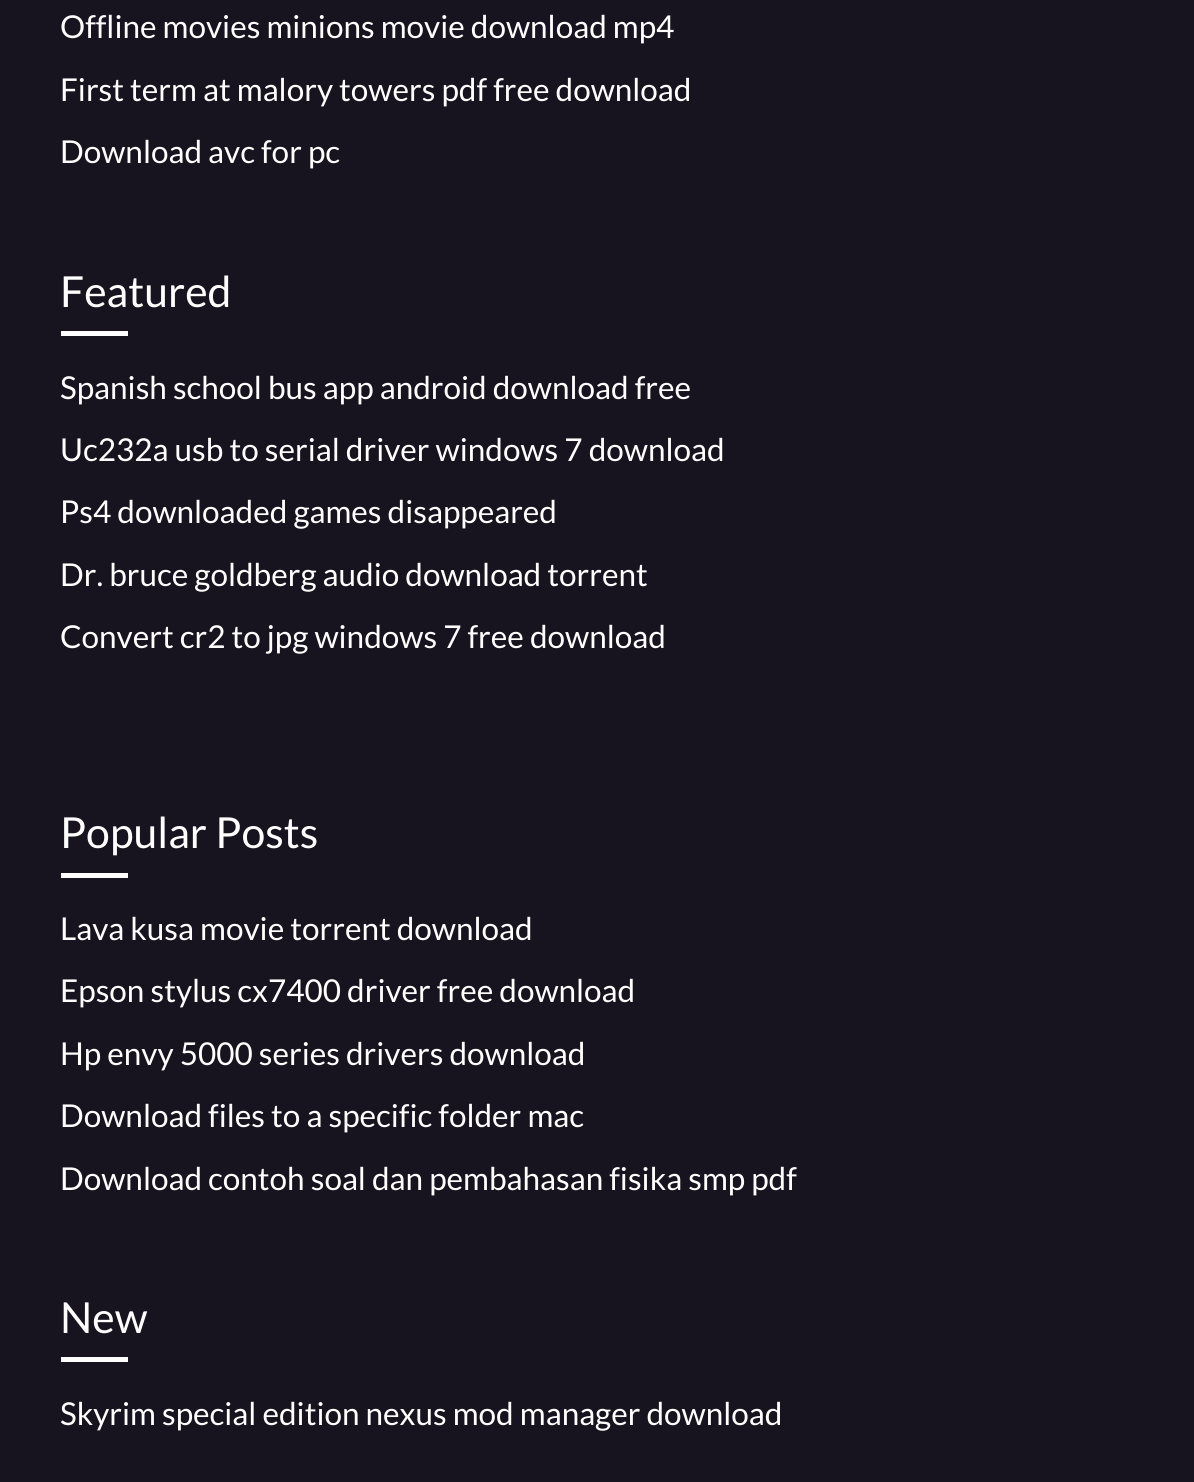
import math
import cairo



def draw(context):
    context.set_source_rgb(23 / 255, 20 / 255, 31 / 255)
    context.paint()
    context.set_source_rgb(1, 1, 1)
    context.rectangle(61, 331, 67, 5)
    context.fill()
    context.rectangle(61, 873, 67, 5)
    context.fill()
    context.rectangle(61, 1357, 67, 5)
    context.fill()
    context.select_font_face("Lato")
    context.set_font_size(31.5)
    context.move_to(60, 38)
    context.show_text("Offline movies minions movie download mp4")
    context.move_to(60, 101)
    context.show_text("First term at malory towers pdf free download")
    context.move_to(60, 163)
    context.show_text("Download avc for pc")
    context.set_font_size(42.75)
    context.move_to(60, 307)
    context.show_text("Featured")
    context.set_font_size(31.5)
    context.move_to(60, 399)
    context.show_text("Spanish school bus app android download free")
    context.move_to(60, 461)
    context.show_text("Uc232a usb to serial driver windows 7 download")
    context.move_to(60, 523)
    context.show_text("Ps4 downloaded games disappeared")
    context.move_to(60, 586)
    context.show_text("Dr. bruce goldberg audio download torrent")
    context.move_to(60, 648)
    context.show_text("Convert cr2 to jpg windows 7 free download")
    context.set_font_size(42.75)
    context.move_to(60, 848)
    context.show_text("Popular Posts")
    context.set_font_size(31.5)
    context.move_to(60, 940)
    context.show_text("Lava kusa movie torrent download")
    context.move_to(60, 1002)
    context.show_text("Epson stylus cx7400 driver free download")
    context.move_to(60, 1065)
    context.show_text("Hp envy 5000 series drivers download")
    context.move_to(60, 1127)
    context.show_text("Download files to a specific folder mac")
    context.move_to(60, 1190)
    context.show_text("Download contoh soal dan pembahasan fisika smp pdf")
    context.set_font_size(42.75)
    context.move_to(60, 1333)
    context.show_text("New")
    context.set_font_size(31.5)
    context.move_to(60, 1425)
    context.show_text("Skyrim special edition nexus mod manager download")


surface = cairo.ImageSurface(cairo.Format.RGB24, 1194, 1482)
context = cairo.Context(surface)
options = cairo.FontOptions()
options.set_hint_metrics(cairo.HintMetrics.OFF)
options.set_hint_style(cairo.HintStyle.NONE)
context.set_font_options(options)
context.set_miter_limit(4)
draw(context)
surface.write_to_png("out.png")
